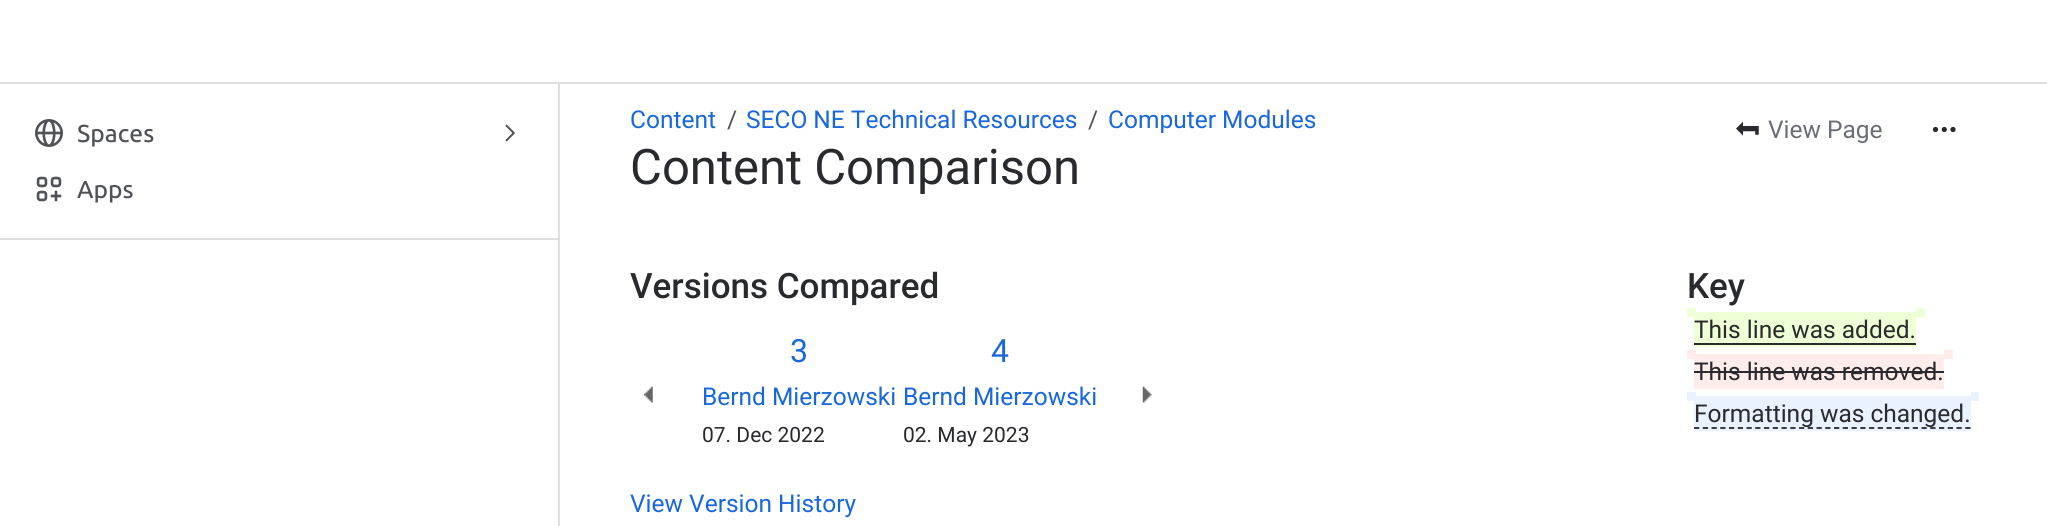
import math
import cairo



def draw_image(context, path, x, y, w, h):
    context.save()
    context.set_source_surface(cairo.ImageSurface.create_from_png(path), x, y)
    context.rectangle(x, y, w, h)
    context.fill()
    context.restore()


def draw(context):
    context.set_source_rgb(1, 1, 1)
    context.paint()
    context.set_source_rgb(221 / 255, 222 / 255, 221 / 255)
    context.rectangle(0, 82, 2047, 2)
    context.fill()
    context.rectangle(558, 84, 2, 442)
    context.fill()
    draw_image(context, "images/1.png", 35, 119, 28, 28)
    draw_image(context, "images/2.png", 505, 124, 10, 18)
    draw_image(context, "images/3.png", 36, 176, 26, 26)
    context.rectangle(0, 238, 558, 2)
    context.fill()
    draw_image(context, "images/4.png", 1736, 121, 23, 15)
    draw_image(context, "images/5.png", 1932, 126, 24, 7)
    context.set_source_rgb(239 / 255, 1, 214 / 255)
    context.rectangle(1687, 308, 9, 9)
    context.fill()
    context.rectangle(1694, 312, 222, 35)
    context.fill()
    context.rectangle(1916, 308, 9, 9)
    context.fill()
    context.set_source_rgb(41 / 255, 42 / 255, 46 / 255)
    context.rectangle(1694, 343, 222, 2)
    context.fill()
    context.set_source_rgb(1, 236 / 255, 235 / 255)
    context.rectangle(1687, 350, 9, 9)
    context.fill()
    context.rectangle(1694, 354, 250, 35)
    context.fill()
    context.rectangle(1944, 350, 9, 9)
    context.fill()
    context.set_source_rgb(41 / 255, 42 / 255, 46 / 255)
    context.rectangle(1694, 371, 250, 2)
    context.fill()
    context.set_source_rgb(233 / 255, 242 / 255, 254 / 255)
    context.rectangle(1687, 392, 9, 9)
    context.fill()
    context.rectangle(1694, 396, 277, 35)
    context.fill()
    context.rectangle(1971, 392, 8, 9)
    context.fill()
    context.new_path()
    context.move_to(1694, 428)
    context.line_to(1970.5, 428)
    context.set_source_rgb(41 / 255, 42 / 255, 46 / 255)
    context.set_line_width(1.8)
    context.set_dash([5.25, 3.5])
    context.stroke()
    draw_image(context, "images/6.png", 644, 386, 9, 17)
    draw_image(context, "images/7.png", 1142, 386, 10, 17)
    context.select_font_face("Ubuntu Medium")
    context.set_font_size(24.5)
    context.set_source_rgb(80 / 255, 82 / 255, 88 / 255)
    context.move_to(77, 142)
    context.show_text("Spaces")
    context.move_to(77, 198)
    context.show_text("Apps")
    context.select_font_face("Roboto")
    context.set_source_rgb(24 / 255, 104 / 255, 219 / 255)
    context.move_to(630, 128)
    context.show_text("Content")
    context.set_source_rgb(80 / 255, 82 / 255, 88 / 255)
    context.move_to(727, 128)
    context.show_text("/")
    context.set_source_rgb(24 / 255, 104 / 255, 219 / 255)
    context.move_to(746, 128)
    context.show_text("SECO NE Technical Resources")
    context.set_source_rgb(80 / 255, 82 / 255, 88 / 255)
    context.move_to(1088, 128)
    context.show_text("/")
    context.set_source_rgb(24 / 255, 104 / 255, 219 / 255)
    context.move_to(1108, 128)
    context.show_text("Computer Modules")
    context.set_font_size(49)
    context.set_source_rgb(41 / 255, 42 / 255, 46 / 255)
    context.move_to(630, 184)
    context.show_text("Content Comparison")
    context.set_font_size(24.5)
    context.set_source_rgb(107 / 255, 110 / 255, 118 / 255)
    context.move_to(1768, 138)
    context.show_text("View Page")
    context.select_font_face("Roboto Medium")
    context.set_font_size(35)
    context.set_source_rgb(41 / 255, 42 / 255, 46 / 255)
    context.move_to(630, 298)
    context.show_text("Versions Compared")
    context.move_to(1687, 298)
    context.show_text("Key")
    context.select_font_face("Roboto")
    context.set_font_size(24.5)
    context.move_to(1694, 338)
    context.show_text("This line was added.")
    context.move_to(1694, 380)
    context.show_text("This line was removed.")
    context.move_to(1694, 422)
    context.show_text("Formatting was changed.")
    context.set_font_size(32)
    context.set_source_rgb(24 / 255, 104 / 255, 219 / 255)
    context.move_to(790, 362)
    context.show_text("3")
    context.move_to(991, 362)
    context.show_text("4")
    context.set_font_size(24.5)
    context.move_to(702, 405)
    context.show_text("Bernd Mierzowski")
    context.move_to(903, 405)
    context.show_text("Bernd Mierzowski")
    context.set_font_size(21)
    context.set_source_rgb(41 / 255, 42 / 255, 46 / 255)
    context.move_to(702, 442)
    context.show_text("07. Dec 2022")
    context.move_to(903, 442)
    context.show_text("02. May 2023")
    context.set_font_size(24.5)
    context.set_source_rgb(24 / 255, 104 / 255, 219 / 255)
    context.move_to(630, 512)
    context.show_text("View Version History")


surface = cairo.ImageSurface(cairo.Format.RGB24, 2047, 526)
context = cairo.Context(surface)
options = cairo.FontOptions()
options.set_hint_metrics(cairo.HintMetrics.OFF)
options.set_hint_style(cairo.HintStyle.NONE)
context.set_font_options(options)
context.set_miter_limit(4)
draw(context)
surface.write_to_png("out.png")
